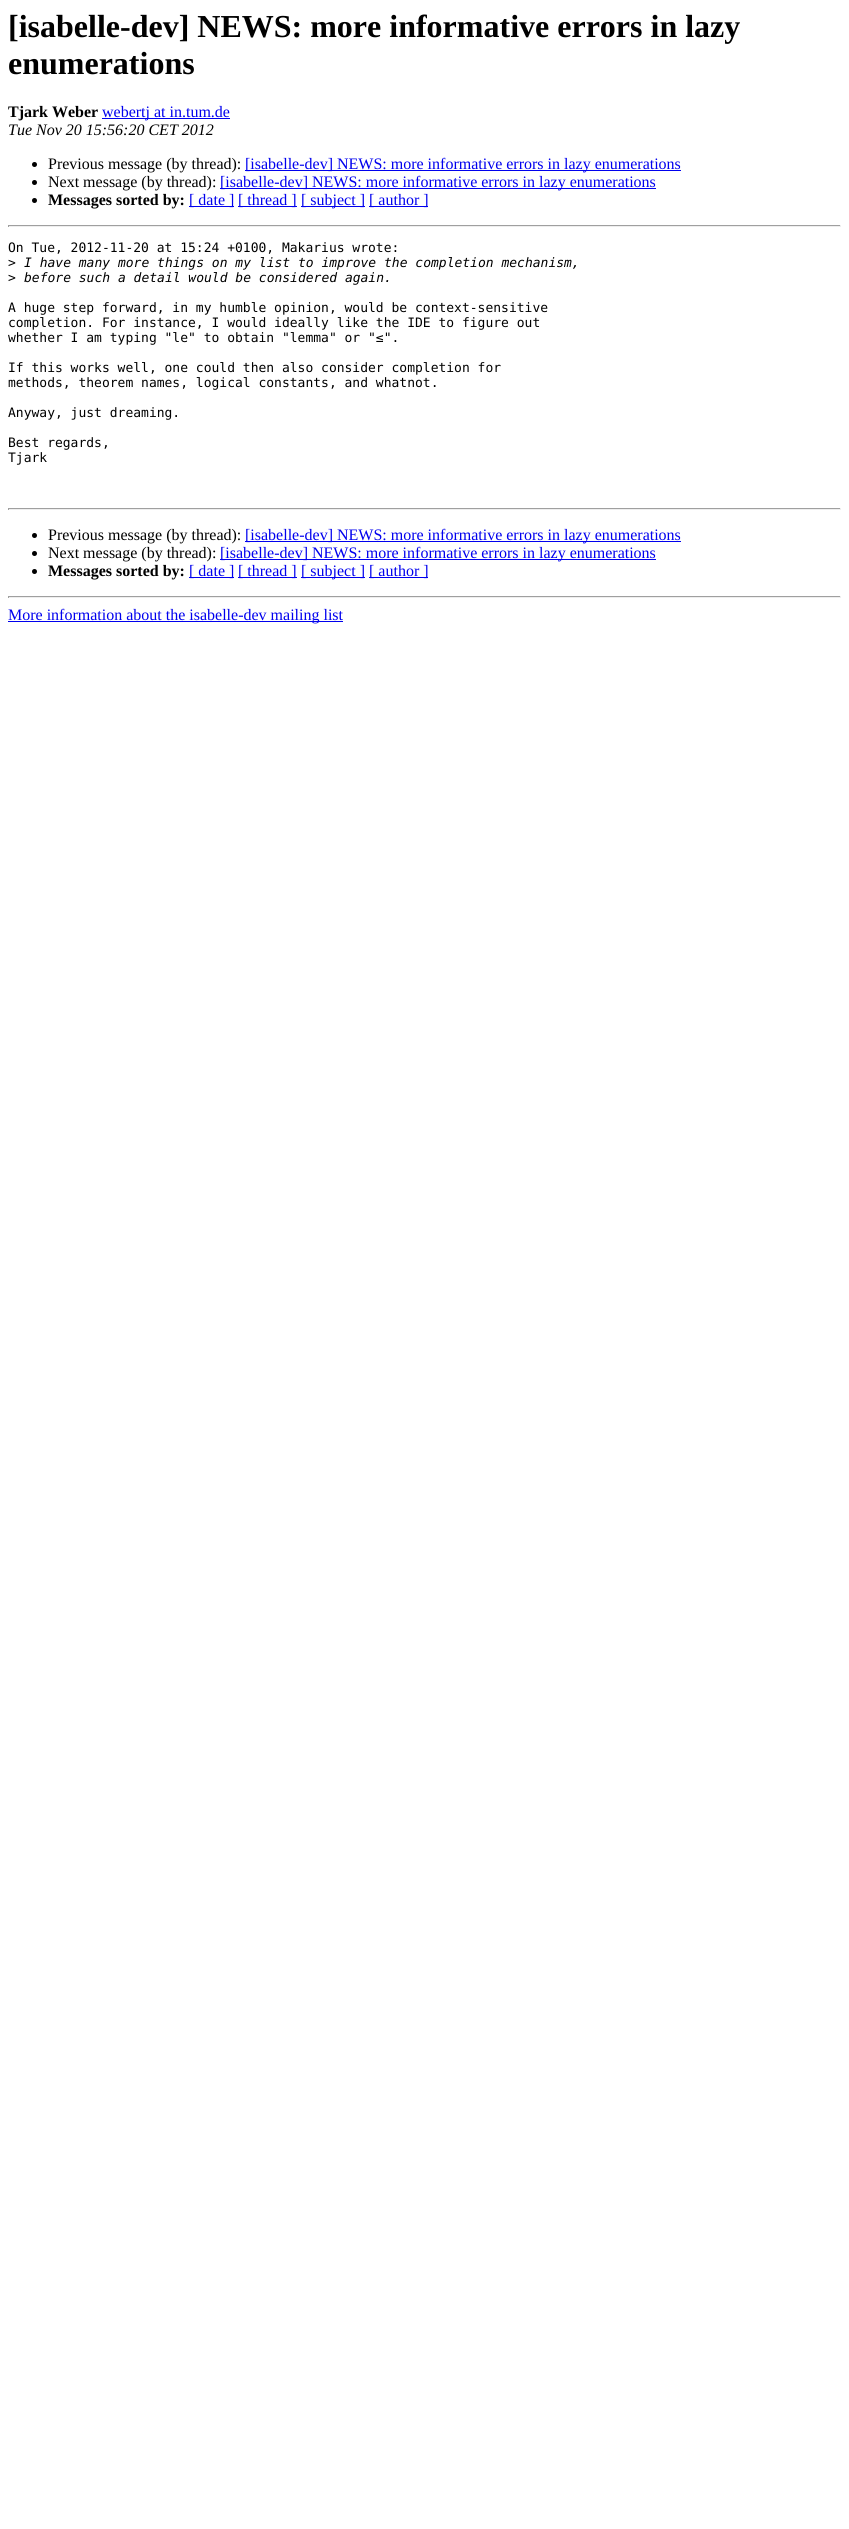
import math
import cairo



def draw(context):
    context.set_source_rgb(1, 1, 1)
    context.paint()
    context.set_source_rgb(0, 0, 238 / 255)
    context.rectangle(102, 118, 128, 1)
    context.fill()
    context.set_source_rgb(0, 0, 0)
    context.arc(34.5, 164.5, 2.5, 0, 2 * math.pi)
    context.fill()
    context.set_source_rgb(0, 0, 238 / 255)
    context.rectangle(245, 170, 436, 1)
    context.fill()
    context.set_source_rgb(0, 0, 0)
    context.arc(34.5, 182.5, 2.5, 0, 2 * math.pi)
    context.fill()
    context.set_source_rgb(0, 0, 238 / 255)
    context.rectangle(220, 188, 436, 1)
    context.fill()
    context.set_source_rgb(0, 0, 0)
    context.arc(34.5, 200.5, 2.5, 0, 2 * math.pi)
    context.fill()
    context.set_source_rgb(0, 0, 238 / 255)
    context.rectangle(189, 206, 45, 1)
    context.fill()
    context.rectangle(238, 206, 59, 1)
    context.fill()
    context.rectangle(301, 206, 64, 1)
    context.fill()
    context.rectangle(369, 206, 59, 1)
    context.fill()
    context.set_source_rgb(159 / 255, 159 / 255, 159 / 255)
    context.rectangle(8, 225, 833, 1)
    context.fill()
    context.set_source_rgb(238 / 255, 238 / 255, 238 / 255)
    context.rectangle(840, 225, 1, 2)
    context.fill()
    context.rectangle(8, 226, 833, 1)
    context.fill()
    context.set_source_rgb(159 / 255, 159 / 255, 159 / 255)
    context.rectangle(8, 225, 1, 2)
    context.fill()
    context.rectangle(8, 508, 833, 1)
    context.fill()
    context.set_source_rgb(238 / 255, 238 / 255, 238 / 255)
    context.rectangle(840, 508, 1, 2)
    context.fill()
    context.rectangle(8, 509, 833, 1)
    context.fill()
    context.set_source_rgb(159 / 255, 159 / 255, 159 / 255)
    context.rectangle(8, 508, 1, 2)
    context.fill()
    context.set_source_rgb(0, 0, 0)
    context.arc(34.5, 535.5, 2.5, 0, 2 * math.pi)
    context.fill()
    context.set_source_rgb(0, 0, 238 / 255)
    context.rectangle(245, 541, 436, 1)
    context.fill()
    context.set_source_rgb(0, 0, 0)
    context.arc(34.5, 553.5, 2.5, 0, 2 * math.pi)
    context.fill()
    context.set_source_rgb(0, 0, 238 / 255)
    context.rectangle(220, 559, 436, 1)
    context.fill()
    context.set_source_rgb(0, 0, 0)
    context.arc(34.5, 571.5, 2.5, 0, 2 * math.pi)
    context.fill()
    context.set_source_rgb(0, 0, 238 / 255)
    context.rectangle(189, 577, 45, 1)
    context.fill()
    context.rectangle(238, 577, 59, 1)
    context.fill()
    context.rectangle(301, 577, 64, 1)
    context.fill()
    context.rectangle(369, 577, 59, 1)
    context.fill()
    context.set_source_rgb(159 / 255, 159 / 255, 159 / 255)
    context.rectangle(8, 596, 833, 1)
    context.fill()
    context.set_source_rgb(238 / 255, 238 / 255, 238 / 255)
    context.rectangle(840, 596, 1, 2)
    context.fill()
    context.rectangle(8, 597, 833, 1)
    context.fill()
    context.set_source_rgb(159 / 255, 159 / 255, 159 / 255)
    context.rectangle(8, 596, 1, 2)
    context.fill()
    context.set_source_rgb(0, 0, 238 / 255)
    context.rectangle(8, 621, 335, 1)
    context.fill()
    context.select_font_face("Liberation Serif", cairo.FontSlant.NORMAL, cairo.FontWeight.BOLD)
    context.set_font_size(32)
    context.set_source_rgb(0, 0, 0)
    context.move_to(8, 37)
    context.show_text("[isabelle-dev] NEWS: more informative errors in lazy")
    context.move_to(8, 74)
    context.show_text("enumerations")
    context.set_font_size(16)
    context.move_to(8, 117)
    context.show_text("Tjark Weber")
    context.select_font_face("Liberation Serif")
    context.set_source_rgb(0, 0, 238 / 255)
    context.move_to(102, 117)
    context.show_text("webertj at in.tum.de")
    context.select_font_face("Liberation Serif", cairo.FontSlant.ITALIC)
    context.set_source_rgb(0, 0, 0)
    context.move_to(8, 135)
    context.show_text("Tue Nov 20 15:56:20 CET 2012")
    context.select_font_face("Liberation Serif")
    context.move_to(48, 169)
    context.show_text("Previous message (by thread):")
    context.set_source_rgb(0, 0, 238 / 255)
    context.move_to(245, 169)
    context.show_text("[isabelle-dev] NEWS: more informative errors in lazy enumerations")
    context.set_source_rgb(0, 0, 0)
    context.move_to(48, 187)
    context.show_text("Next message (by thread):")
    context.set_source_rgb(0, 0, 238 / 255)
    context.move_to(220, 187)
    context.show_text("[isabelle-dev] NEWS: more informative errors in lazy enumerations")
    context.select_font_face("Liberation Serif", cairo.FontSlant.NORMAL, cairo.FontWeight.BOLD)
    context.set_source_rgb(0, 0, 0)
    context.move_to(48, 205)
    context.show_text("Messages sorted by:")
    context.select_font_face("Liberation Serif")
    context.set_source_rgb(0, 0, 238 / 255)
    context.move_to(189, 205)
    context.show_text("[ date ]")
    context.move_to(238, 205)
    context.show_text("[ thread ]")
    context.move_to(301, 205)
    context.show_text("[ subject ]")
    context.move_to(369, 205)
    context.show_text("[ author ]")
    context.select_font_face("DejaVu Sans Mono")
    context.set_font_size(13)
    context.set_source_rgb(0, 0, 0)
    context.move_to(8, 252)
    context.show_text("On Tue, 2012-11-20 at 15:24 +0100, Makarius wrote:")
    context.move_to(8, 267)
    context.show_text(">")
    context.select_font_face("DejaVu Sans Mono", cairo.FontSlant.ITALIC)
    context.move_to(24, 267)
    context.show_text("I have many more things on my list to improve the completion mechanism,")
    context.select_font_face("DejaVu Sans Mono")
    context.move_to(8, 282)
    context.show_text(">")
    context.select_font_face("DejaVu Sans Mono", cairo.FontSlant.ITALIC)
    context.move_to(24, 282)
    context.show_text("before such a detail would be considered again.")
    context.select_font_face("DejaVu Sans Mono")
    context.move_to(8, 312)
    context.show_text("A huge step forward, in my humble opinion, would be context-sensitive")
    context.move_to(8, 327)
    context.show_text("completion. For instance, I would ideally like the IDE to figure out")
    context.move_to(8, 342)
    context.show_text("whether I am typing \"le\" to obtain \"lemma\" or \"≤\".")
    context.move_to(8, 372)
    context.show_text("If this works well, one could then also consider completion for")
    context.move_to(8, 387)
    context.show_text("methods, theorem names, logical constants, and whatnot.")
    context.move_to(8, 417)
    context.show_text("Anyway, just dreaming.")
    context.move_to(8, 447)
    context.show_text("Best regards,")
    context.move_to(8, 462)
    context.show_text("Tjark")
    context.select_font_face("Liberation Serif")
    context.set_font_size(16)
    context.move_to(48, 540)
    context.show_text("Previous message (by thread):")
    context.set_source_rgb(0, 0, 238 / 255)
    context.move_to(245, 540)
    context.show_text("[isabelle-dev] NEWS: more informative errors in lazy enumerations")
    context.set_source_rgb(0, 0, 0)
    context.move_to(48, 558)
    context.show_text("Next message (by thread):")
    context.set_source_rgb(0, 0, 238 / 255)
    context.move_to(220, 558)
    context.show_text("[isabelle-dev] NEWS: more informative errors in lazy enumerations")
    context.select_font_face("Liberation Serif", cairo.FontSlant.NORMAL, cairo.FontWeight.BOLD)
    context.set_source_rgb(0, 0, 0)
    context.move_to(48, 576)
    context.show_text("Messages sorted by:")
    context.select_font_face("Liberation Serif")
    context.set_source_rgb(0, 0, 238 / 255)
    context.move_to(189, 576)
    context.show_text("[ date ]")
    context.move_to(238, 576)
    context.show_text("[ thread ]")
    context.move_to(301, 576)
    context.show_text("[ subject ]")
    context.move_to(369, 576)
    context.show_text("[ author ]")
    context.move_to(8, 620)
    context.show_text("More information about the isabelle-dev mailing list")


surface = cairo.ImageSurface(cairo.Format.RGB24, 849, 2529)
context = cairo.Context(surface)
options = cairo.FontOptions()
options.set_hint_metrics(cairo.HintMetrics.OFF)
options.set_hint_style(cairo.HintStyle.NONE)
context.set_font_options(options)
context.set_miter_limit(4)
draw(context)
surface.write_to_png("out.png")
